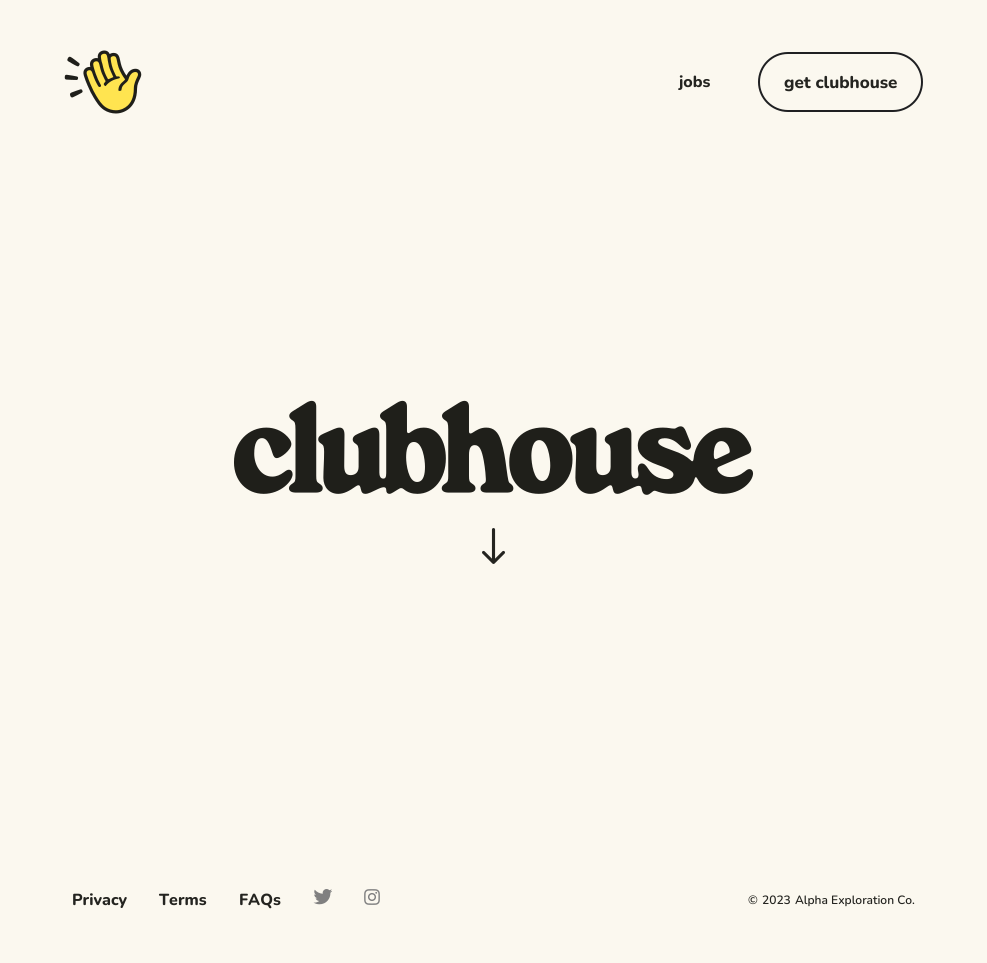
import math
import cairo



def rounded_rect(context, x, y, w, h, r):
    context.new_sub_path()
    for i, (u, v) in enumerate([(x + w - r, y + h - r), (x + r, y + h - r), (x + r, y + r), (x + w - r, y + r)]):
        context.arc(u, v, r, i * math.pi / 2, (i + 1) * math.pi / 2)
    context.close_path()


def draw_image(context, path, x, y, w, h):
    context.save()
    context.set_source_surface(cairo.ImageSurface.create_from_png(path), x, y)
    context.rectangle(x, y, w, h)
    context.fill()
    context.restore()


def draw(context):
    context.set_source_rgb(251 / 255, 248 / 255, 239 / 255)
    context.paint()
    draw_image(context, "images/1.png", 64, 50, 78, 64)
    rounded_rect(context, 759, 53, 163, 58, 29)
    context.set_source_rgb(31 / 255, 32 / 255, 34 / 255)
    context.stroke()
    draw_image(context, "images/2.png", 234, 400, 520, 95)
    draw_image(context, "images/3.png", 482, 528, 23, 36)
    draw_image(context, "images/4.png", 313, 889, 19, 16)
    draw_image(context, "images/5.png", 364, 889, 16, 16)
    context.select_font_face("Nunito ExtraBold")
    context.set_font_size(16)
    context.set_source_rgb(36 / 255, 36 / 255, 32 / 255)
    context.move_to(679, 87)
    context.show_text("jobs")
    context.set_font_size(17)
    context.move_to(784, 88)
    context.show_text("get clubhouse")
    context.set_font_size(16)
    context.move_to(72, 905)
    context.show_text("Privacy")
    context.move_to(159, 905)
    context.show_text("Terms")
    context.move_to(239, 905)
    context.show_text("FAQs")
    context.select_font_face("Nunito SemiBold")
    context.set_font_size(12)
    context.move_to(748, 904)
    context.show_text("©")
    context.move_to(762, 904)
    context.show_text("2023")
    context.move_to(795, 904)
    context.show_text("Alpha Exploration Co.")


surface = cairo.ImageSurface(cairo.Format.RGB24, 987, 963)
context = cairo.Context(surface)
options = cairo.FontOptions()
options.set_hint_metrics(cairo.HintMetrics.OFF)
options.set_hint_style(cairo.HintStyle.NONE)
context.set_font_options(options)
context.set_miter_limit(4)
draw(context)
surface.write_to_png("out.png")
